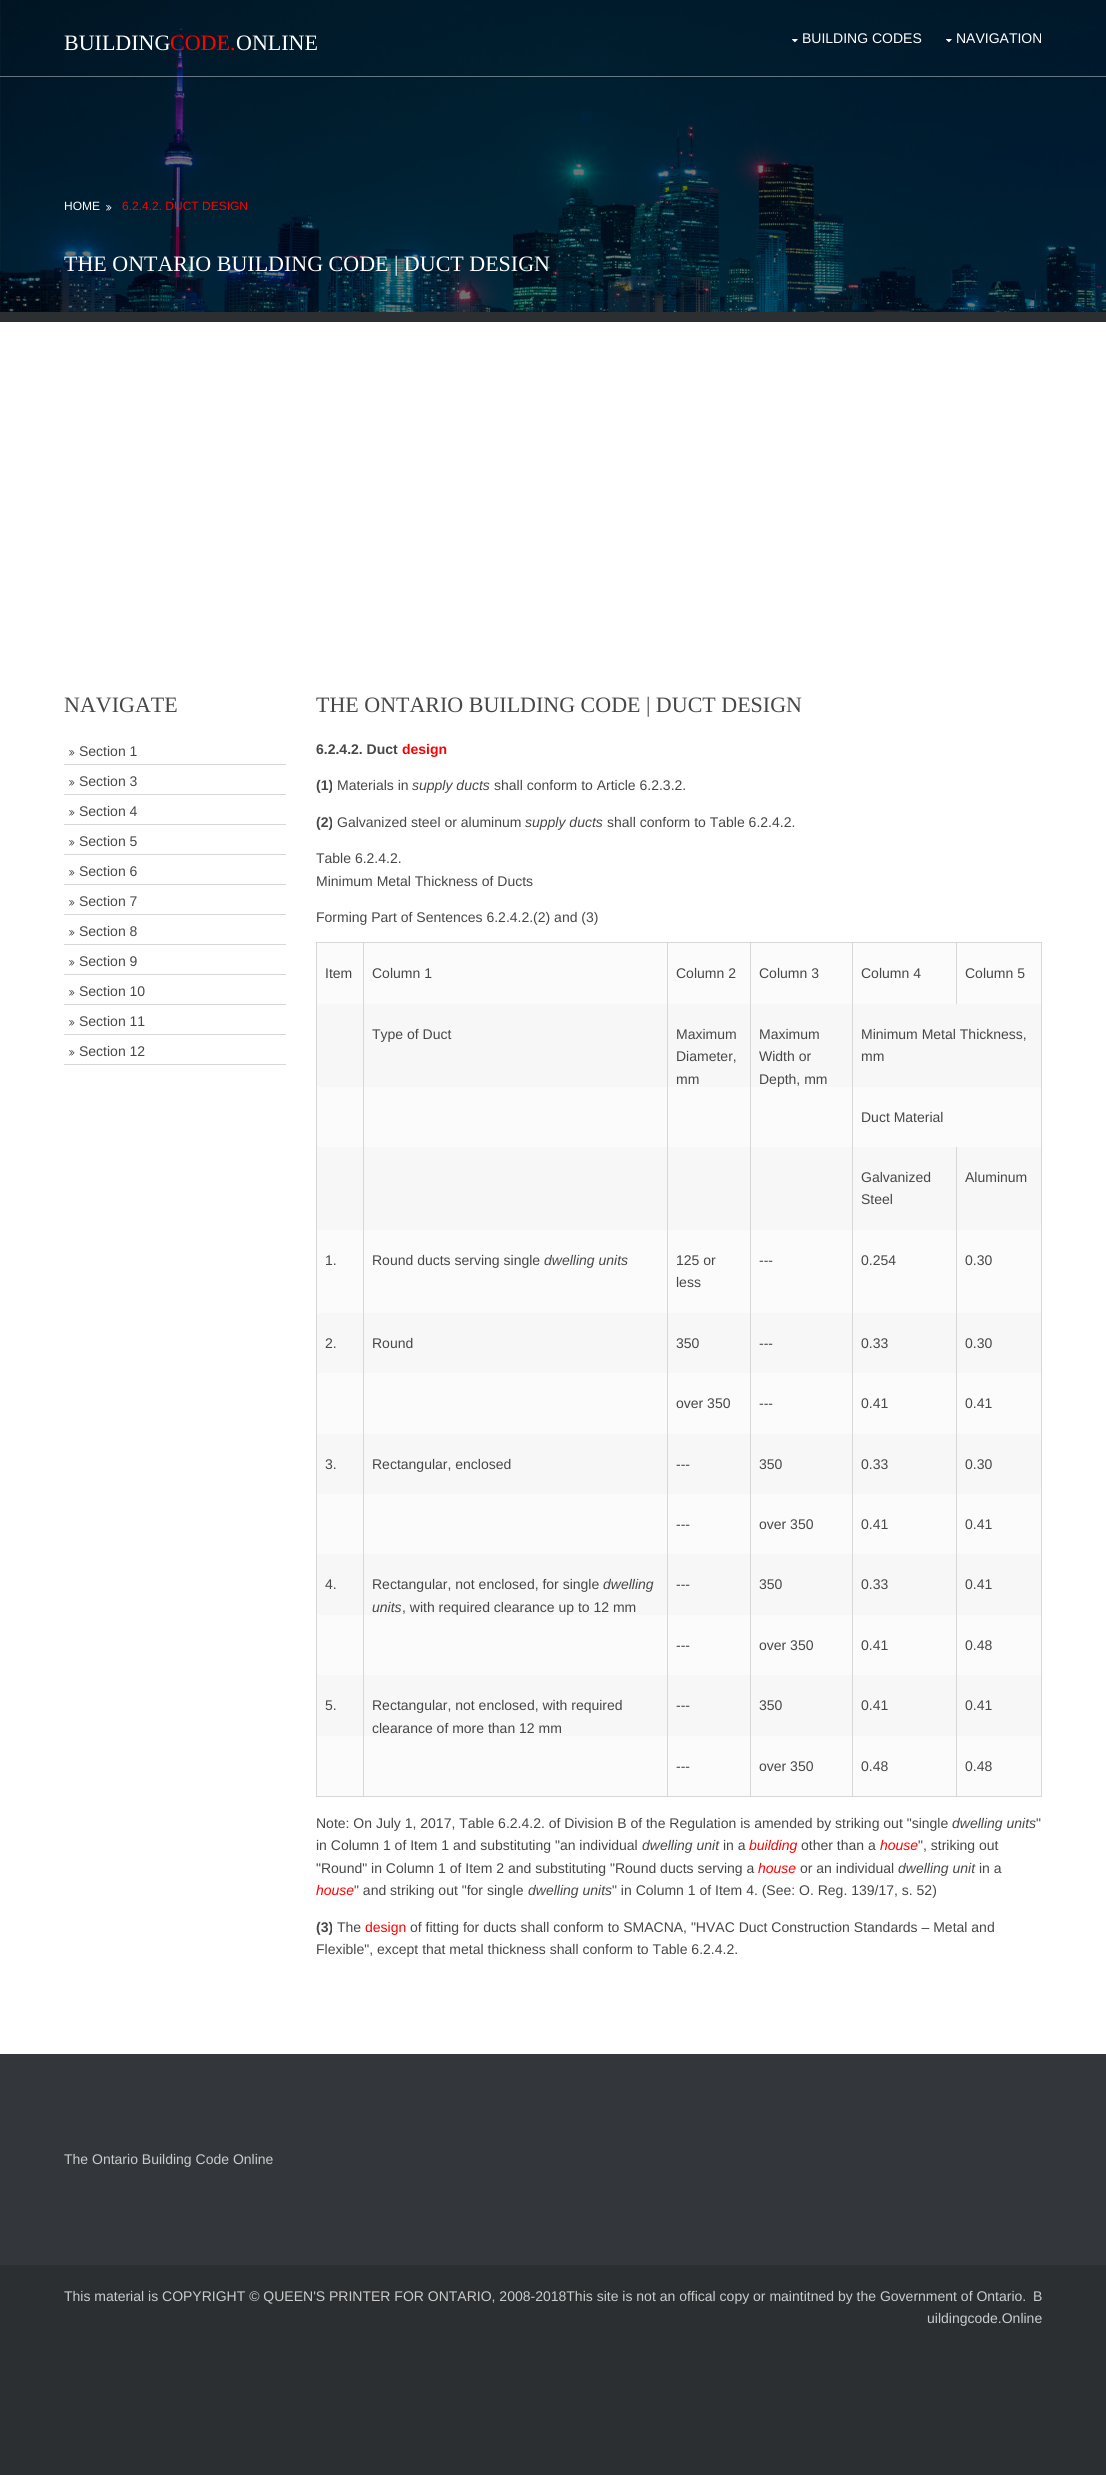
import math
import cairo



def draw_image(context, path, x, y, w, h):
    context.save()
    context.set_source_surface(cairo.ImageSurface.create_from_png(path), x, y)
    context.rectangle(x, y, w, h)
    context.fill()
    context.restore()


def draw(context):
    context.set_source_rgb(43 / 255, 47 / 255, 50 / 255)
    context.paint()
    draw_image(context, "images/1.png", 0, 0, 1106, 312)
    context.set_source_rgba(1, 1, 1, 0.4)
    context.rectangle(0, 76, 1106, 1)
    context.fill()
    draw_image(context, "images/2.png", 792, 39, 6, 4)
    draw_image(context, "images/3.png", 946, 39, 6, 4)
    draw_image(context, "images/4.png", 106, 205, 6, 6)
    context.set_source_rgb(1, 1, 1)
    context.rectangle(0, 322, 1106, 1732)
    context.fill()
    context.set_source_rgb(215 / 255, 215 / 255, 215 / 255)
    context.rectangle(64, 764, 222, 1)
    context.fill()
    draw_image(context, "images/5.png", 69, 750, 6, 6)
    context.rectangle(64, 794, 222, 1)
    context.fill()
    draw_image(context, "images/5.png", 69, 780, 6, 6)
    context.rectangle(64, 824, 222, 1)
    context.fill()
    draw_image(context, "images/5.png", 69, 810, 6, 6)
    context.rectangle(64, 854, 222, 1)
    context.fill()
    draw_image(context, "images/5.png", 69, 840, 6, 6)
    context.rectangle(64, 884, 222, 1)
    context.fill()
    draw_image(context, "images/5.png", 69, 870, 6, 6)
    context.rectangle(64, 914, 222, 1)
    context.fill()
    draw_image(context, "images/5.png", 69, 900, 6, 6)
    context.rectangle(64, 944, 222, 1)
    context.fill()
    draw_image(context, "images/5.png", 69, 930, 6, 6)
    context.rectangle(64, 974, 222, 1)
    context.fill()
    draw_image(context, "images/5.png", 69, 960, 6, 6)
    context.rectangle(64, 1004, 222, 1)
    context.fill()
    draw_image(context, "images/5.png", 69, 990, 6, 6)
    context.rectangle(64, 1034, 222, 1)
    context.fill()
    draw_image(context, "images/5.png", 69, 1020, 6, 6)
    context.rectangle(64, 1064, 222, 1)
    context.fill()
    draw_image(context, "images/5.png", 69, 1050, 6, 6)
    context.rectangle(316, 942, 726, 1)
    context.fill()
    context.rectangle(1041, 942, 1, 855)
    context.fill()
    context.rectangle(316, 1796, 726, 1)
    context.fill()
    context.rectangle(316, 942, 1, 855)
    context.fill()
    context.set_source_rgb(251 / 255, 251 / 255, 251 / 255)
    context.rectangle(317, 943, 724, 61)
    context.fill()
    context.set_source_rgb(215 / 255, 215 / 255, 215 / 255)
    context.rectangle(956, 942, 1, 62)
    context.fill()
    context.set_source_rgb(247 / 255, 247 / 255, 247 / 255)
    context.rectangle(317, 1004, 724, 83)
    context.fill()
    context.set_source_rgb(251 / 255, 251 / 255, 251 / 255)
    context.rectangle(317, 1087, 724, 60)
    context.fill()
    context.set_source_rgb(247 / 255, 247 / 255, 247 / 255)
    context.rectangle(317, 1147, 724, 83)
    context.fill()
    context.set_source_rgb(251 / 255, 251 / 255, 251 / 255)
    context.rectangle(317, 1230, 724, 83)
    context.fill()
    context.set_source_rgb(247 / 255, 247 / 255, 247 / 255)
    context.rectangle(317, 1313, 724, 60)
    context.fill()
    context.set_source_rgb(251 / 255, 251 / 255, 251 / 255)
    context.rectangle(317, 1373, 724, 61)
    context.fill()
    context.set_source_rgb(247 / 255, 247 / 255, 247 / 255)
    context.rectangle(317, 1434, 724, 60)
    context.fill()
    context.set_source_rgb(251 / 255, 251 / 255, 251 / 255)
    context.rectangle(317, 1494, 724, 60)
    context.fill()
    context.set_source_rgb(247 / 255, 247 / 255, 247 / 255)
    context.rectangle(317, 1554, 724, 61)
    context.fill()
    context.set_source_rgb(251 / 255, 251 / 255, 251 / 255)
    context.rectangle(317, 1615, 724, 60)
    context.fill()
    context.set_source_rgb(247 / 255, 247 / 255, 247 / 255)
    context.rectangle(317, 1675, 724, 61)
    context.fill()
    context.set_source_rgb(251 / 255, 251 / 255, 251 / 255)
    context.rectangle(317, 1736, 724, 60)
    context.fill()
    context.set_source_rgb(215 / 255, 215 / 255, 215 / 255)
    context.rectangle(363, 942, 1, 855)
    context.fill()
    context.rectangle(667, 942, 1, 855)
    context.fill()
    context.rectangle(750, 942, 1, 855)
    context.fill()
    context.rectangle(852, 942, 1, 855)
    context.fill()
    context.rectangle(956, 1147, 1, 650)
    context.fill()
    context.set_source_rgb(51 / 255, 54 / 255, 59 / 255)
    context.rectangle(0, 2054, 1106, 211)
    context.fill()
    context.select_font_face("Liberation Serif")
    context.set_font_size(22)
    context.set_source_rgb(1, 1, 1)
    context.move_to(64, 50)
    context.show_text("BUILDING")
    context.set_source_rgb(254 / 255, 0, 0)
    context.move_to(170, 50)
    context.show_text("CODE.")
    context.set_source_rgb(1, 1, 1)
    context.move_to(236, 50)
    context.show_text("ONLINE")
    context.select_font_face("Liberation Sans")
    context.set_font_size(14)
    context.move_to(802, 43)
    context.show_text("BUILDING CODES")
    context.move_to(956, 43)
    context.show_text("NAVIGATION")
    context.set_font_size(12)
    context.move_to(64, 210)
    context.show_text("HOME")
    context.set_source_rgb(254 / 255, 0, 0)
    context.move_to(122, 210)
    context.show_text("6.2.4.2. DUCT DESIGN")
    context.select_font_face("Liberation Serif")
    context.set_font_size(22)
    context.set_source_rgb(1, 1, 1)
    context.move_to(64, 271)
    context.show_text("THE ONTARIO BUILDING CODE | DUCT DESIGN")
    context.set_source_rgb(71 / 255, 71 / 255, 71 / 255)
    context.move_to(64, 712)
    context.show_text("NAVIGATE")
    context.select_font_face("Liberation Sans")
    context.set_font_size(14)
    context.move_to(79, 756)
    context.show_text("Section 1")
    context.move_to(79, 786)
    context.show_text("Section 3")
    context.move_to(79, 816)
    context.show_text("Section 4")
    context.move_to(79, 846)
    context.show_text("Section 5")
    context.move_to(79, 876)
    context.show_text("Section 6")
    context.move_to(79, 906)
    context.show_text("Section 7")
    context.move_to(79, 936)
    context.show_text("Section 8")
    context.move_to(79, 966)
    context.show_text("Section 9")
    context.move_to(79, 996)
    context.show_text("Section 10")
    context.move_to(79, 1026)
    context.show_text("Section 11")
    context.move_to(79, 1056)
    context.show_text("Section 12")
    context.select_font_face("Liberation Serif")
    context.set_font_size(22)
    context.move_to(316, 712)
    context.show_text("THE ONTARIO BUILDING CODE | DUCT DESIGN")
    context.select_font_face("Liberation Sans", cairo.FontSlant.NORMAL, cairo.FontWeight.BOLD)
    context.set_font_size(14)
    context.move_to(316, 754)
    context.show_text("6.2.4.2. Duct")
    context.set_source_rgb(254 / 255, 0, 0)
    context.move_to(402, 754)
    context.show_text("design")
    context.set_source_rgb(71 / 255, 71 / 255, 71 / 255)
    context.move_to(316, 790)
    context.show_text("(1)")
    context.select_font_face("Liberation Sans")
    context.move_to(337, 790)
    context.show_text("Materials in")
    context.select_font_face("Liberation Sans", cairo.FontSlant.ITALIC)
    context.move_to(412, 790)
    context.show_text("supply ducts")
    context.select_font_face("Liberation Sans")
    context.move_to(494, 790)
    context.show_text("shall conform to Article 6.2.3.2.")
    context.select_font_face("Liberation Sans", cairo.FontSlant.NORMAL, cairo.FontWeight.BOLD)
    context.move_to(316, 827)
    context.show_text("(2)")
    context.select_font_face("Liberation Sans")
    context.move_to(337, 827)
    context.show_text("Galvanized steel or aluminum")
    context.select_font_face("Liberation Sans", cairo.FontSlant.ITALIC)
    context.move_to(525, 827)
    context.show_text("supply ducts")
    context.select_font_face("Liberation Sans")
    context.move_to(607, 827)
    context.show_text("shall conform to Table 6.2.4.2.")
    context.move_to(316, 863)
    context.show_text("Table 6.2.4.2.")
    context.move_to(316, 886)
    context.show_text("Minimum Metal Thickness of Ducts")
    context.move_to(316, 922)
    context.show_text("Forming Part of Sentences 6.2.4.2.(2) and (3)")
    context.move_to(325, 978)
    context.show_text("Item")
    context.move_to(372, 978)
    context.show_text("Column 1")
    context.move_to(676, 978)
    context.show_text("Column 2")
    context.move_to(759, 978)
    context.show_text("Column 3")
    context.move_to(861, 978)
    context.show_text("Column 4")
    context.move_to(965, 978)
    context.show_text("Column 5")
    context.move_to(372, 1039)
    context.show_text("Type of Duct")
    context.move_to(676, 1039)
    context.show_text("Maximum")
    context.move_to(676, 1061)
    context.show_text("Diameter,")
    context.move_to(676, 1084)
    context.show_text("mm")
    context.move_to(759, 1039)
    context.show_text("Maximum")
    context.move_to(759, 1061)
    context.show_text("Width or")
    context.move_to(759, 1084)
    context.show_text("Depth, mm")
    context.move_to(861, 1039)
    context.show_text("Minimum Metal Thickness,")
    context.move_to(861, 1061)
    context.show_text("mm")
    context.move_to(861, 1122)
    context.show_text("Duct Material")
    context.move_to(861, 1182)
    context.show_text("Galvanized")
    context.move_to(861, 1204)
    context.show_text("Steel")
    context.move_to(965, 1182)
    context.show_text("Aluminum")
    context.move_to(325, 1265)
    context.show_text("1.")
    context.move_to(372, 1265)
    context.show_text("Round ducts serving single")
    context.select_font_face("Liberation Sans", cairo.FontSlant.ITALIC)
    context.move_to(544, 1265)
    context.show_text("dwelling units")
    context.select_font_face("Liberation Sans")
    context.move_to(676, 1265)
    context.show_text("125 or")
    context.move_to(676, 1287)
    context.show_text("less")
    context.move_to(759, 1265)
    context.show_text("---")
    context.move_to(861, 1265)
    context.show_text("0.254")
    context.move_to(965, 1265)
    context.show_text("0.30")
    context.move_to(325, 1348)
    context.show_text("2.")
    context.move_to(372, 1348)
    context.show_text("Round")
    context.move_to(676, 1348)
    context.show_text("350")
    context.move_to(759, 1348)
    context.show_text("---")
    context.move_to(861, 1348)
    context.show_text("0.33")
    context.move_to(965, 1348)
    context.show_text("0.30")
    context.move_to(676, 1408)
    context.show_text("over 350")
    context.move_to(759, 1408)
    context.show_text("---")
    context.move_to(861, 1408)
    context.show_text("0.41")
    context.move_to(965, 1408)
    context.show_text("0.41")
    context.move_to(325, 1469)
    context.show_text("3.")
    context.move_to(372, 1469)
    context.show_text("Rectangular, enclosed")
    context.move_to(676, 1469)
    context.show_text("---")
    context.move_to(759, 1469)
    context.show_text("350")
    context.move_to(861, 1469)
    context.show_text("0.33")
    context.move_to(965, 1469)
    context.show_text("0.30")
    context.move_to(676, 1529)
    context.show_text("---")
    context.move_to(759, 1529)
    context.show_text("over 350")
    context.move_to(861, 1529)
    context.show_text("0.41")
    context.move_to(965, 1529)
    context.show_text("0.41")
    context.move_to(325, 1589)
    context.show_text("4.")
    context.move_to(372, 1589)
    context.show_text("Rectangular, not enclosed, for single")
    context.select_font_face("Liberation Sans", cairo.FontSlant.ITALIC)
    context.move_to(603, 1589)
    context.show_text("dwelling")
    context.move_to(372, 1612)
    context.show_text("units")
    context.select_font_face("Liberation Sans")
    context.move_to(402, 1612)
    context.show_text(", with required clearance up to 12 mm")
    context.move_to(676, 1589)
    context.show_text("---")
    context.move_to(759, 1589)
    context.show_text("350")
    context.move_to(861, 1589)
    context.show_text("0.33")
    context.move_to(965, 1589)
    context.show_text("0.41")
    context.move_to(676, 1650)
    context.show_text("---")
    context.move_to(759, 1650)
    context.show_text("over 350")
    context.move_to(861, 1650)
    context.show_text("0.41")
    context.move_to(965, 1650)
    context.show_text("0.48")
    context.move_to(325, 1710)
    context.show_text("5.")
    context.move_to(372, 1710)
    context.show_text("Rectangular, not enclosed, with required")
    context.move_to(372, 1733)
    context.show_text("clearance of more than 12 mm")
    context.move_to(676, 1710)
    context.show_text("---")
    context.move_to(759, 1710)
    context.show_text("350")
    context.move_to(861, 1710)
    context.show_text("0.41")
    context.move_to(965, 1710)
    context.show_text("0.41")
    context.move_to(676, 1771)
    context.show_text("---")
    context.move_to(759, 1771)
    context.show_text("over 350")
    context.move_to(861, 1771)
    context.show_text("0.48")
    context.move_to(965, 1771)
    context.show_text("0.48")
    context.move_to(316, 1828)
    context.show_text("Note: On July 1, 2017, Table 6.2.4.2. of Division B of the Regulation is amended by striking out \"single")
    context.select_font_face("Liberation Sans", cairo.FontSlant.ITALIC)
    context.move_to(952, 1828)
    context.show_text("dwelling units")
    context.select_font_face("Liberation Sans")
    context.move_to(1036, 1828)
    context.show_text("\"")
    context.move_to(316, 1850)
    context.show_text("in Column 1 of Item 1 and substituting \"an individual")
    context.select_font_face("Liberation Sans", cairo.FontSlant.ITALIC)
    context.move_to(642, 1850)
    context.show_text("dwelling unit")
    context.select_font_face("Liberation Sans")
    context.move_to(723, 1850)
    context.show_text("in a")
    context.select_font_face("Liberation Sans", cairo.FontSlant.ITALIC)
    context.set_source_rgb(254 / 255, 0, 0)
    context.move_to(749, 1850)
    context.show_text("building")
    context.select_font_face("Liberation Sans")
    context.set_source_rgb(71 / 255, 71 / 255, 71 / 255)
    context.move_to(801, 1850)
    context.show_text("other than a")
    context.select_font_face("Liberation Sans", cairo.FontSlant.ITALIC)
    context.set_source_rgb(254 / 255, 0, 0)
    context.move_to(880, 1850)
    context.show_text("house")
    context.select_font_face("Liberation Sans")
    context.set_source_rgb(71 / 255, 71 / 255, 71 / 255)
    context.move_to(918, 1850)
    context.show_text("\", striking out")
    context.move_to(316, 1873)
    context.show_text("\"Round\" in Column 1 of Item 2 and substituting \"Round ducts serving a")
    context.select_font_face("Liberation Sans", cairo.FontSlant.ITALIC)
    context.set_source_rgb(254 / 255, 0, 0)
    context.move_to(758, 1873)
    context.show_text("house")
    context.select_font_face("Liberation Sans")
    context.set_source_rgb(71 / 255, 71 / 255, 71 / 255)
    context.move_to(800, 1873)
    context.show_text("or an individual")
    context.select_font_face("Liberation Sans", cairo.FontSlant.ITALIC)
    context.move_to(898, 1873)
    context.show_text("dwelling unit")
    context.select_font_face("Liberation Sans")
    context.move_to(979, 1873)
    context.show_text("in a")
    context.select_font_face("Liberation Sans", cairo.FontSlant.ITALIC)
    context.set_source_rgb(254 / 255, 0, 0)
    context.move_to(316, 1895)
    context.show_text("house")
    context.select_font_face("Liberation Sans")
    context.set_source_rgb(71 / 255, 71 / 255, 71 / 255)
    context.move_to(354, 1895)
    context.show_text("\" and striking out \"for single")
    context.select_font_face("Liberation Sans", cairo.FontSlant.ITALIC)
    context.move_to(528, 1895)
    context.show_text("dwelling units")
    context.select_font_face("Liberation Sans")
    context.move_to(612, 1895)
    context.show_text("\" in Column 1 of Item 4. (See: O. Reg. 139/17, s. 52)")
    context.select_font_face("Liberation Sans", cairo.FontSlant.NORMAL, cairo.FontWeight.BOLD)
    context.move_to(316, 1932)
    context.show_text("(3)")
    context.select_font_face("Liberation Sans")
    context.move_to(337, 1932)
    context.show_text("The")
    context.set_source_rgb(254 / 255, 0, 0)
    context.move_to(365, 1932)
    context.show_text("design")
    context.set_source_rgb(71 / 255, 71 / 255, 71 / 255)
    context.move_to(410, 1932)
    context.show_text("of fitting for ducts shall conform to SMACNA, \"HVAC Duct Construction Standards – Metal and")
    context.move_to(316, 1954)
    context.show_text("Flexible\", except that metal thickness shall conform to Table 6.2.4.2.")
    context.set_source_rgb(203 / 255, 203 / 255, 203 / 255)
    context.move_to(64, 2164)
    context.show_text("The Ontario Building Code Online")
    context.move_to(64, 2301)
    context.show_text("This material is COPYRIGHT © QUEEN'S PRINTER FOR ONTARIO, 2008-2018This site is not an offical copy or maintitned by the Government of Ontario.")
    context.move_to(1033, 2301)
    context.show_text("B")
    context.move_to(927, 2323)
    context.show_text("uildingcode.Online")


surface = cairo.ImageSurface(cairo.Format.RGB24, 1106, 2475)
context = cairo.Context(surface)
options = cairo.FontOptions()
options.set_hint_metrics(cairo.HintMetrics.OFF)
options.set_hint_style(cairo.HintStyle.NONE)
context.set_font_options(options)
context.set_miter_limit(4)
draw(context)
surface.write_to_png("out.png")
